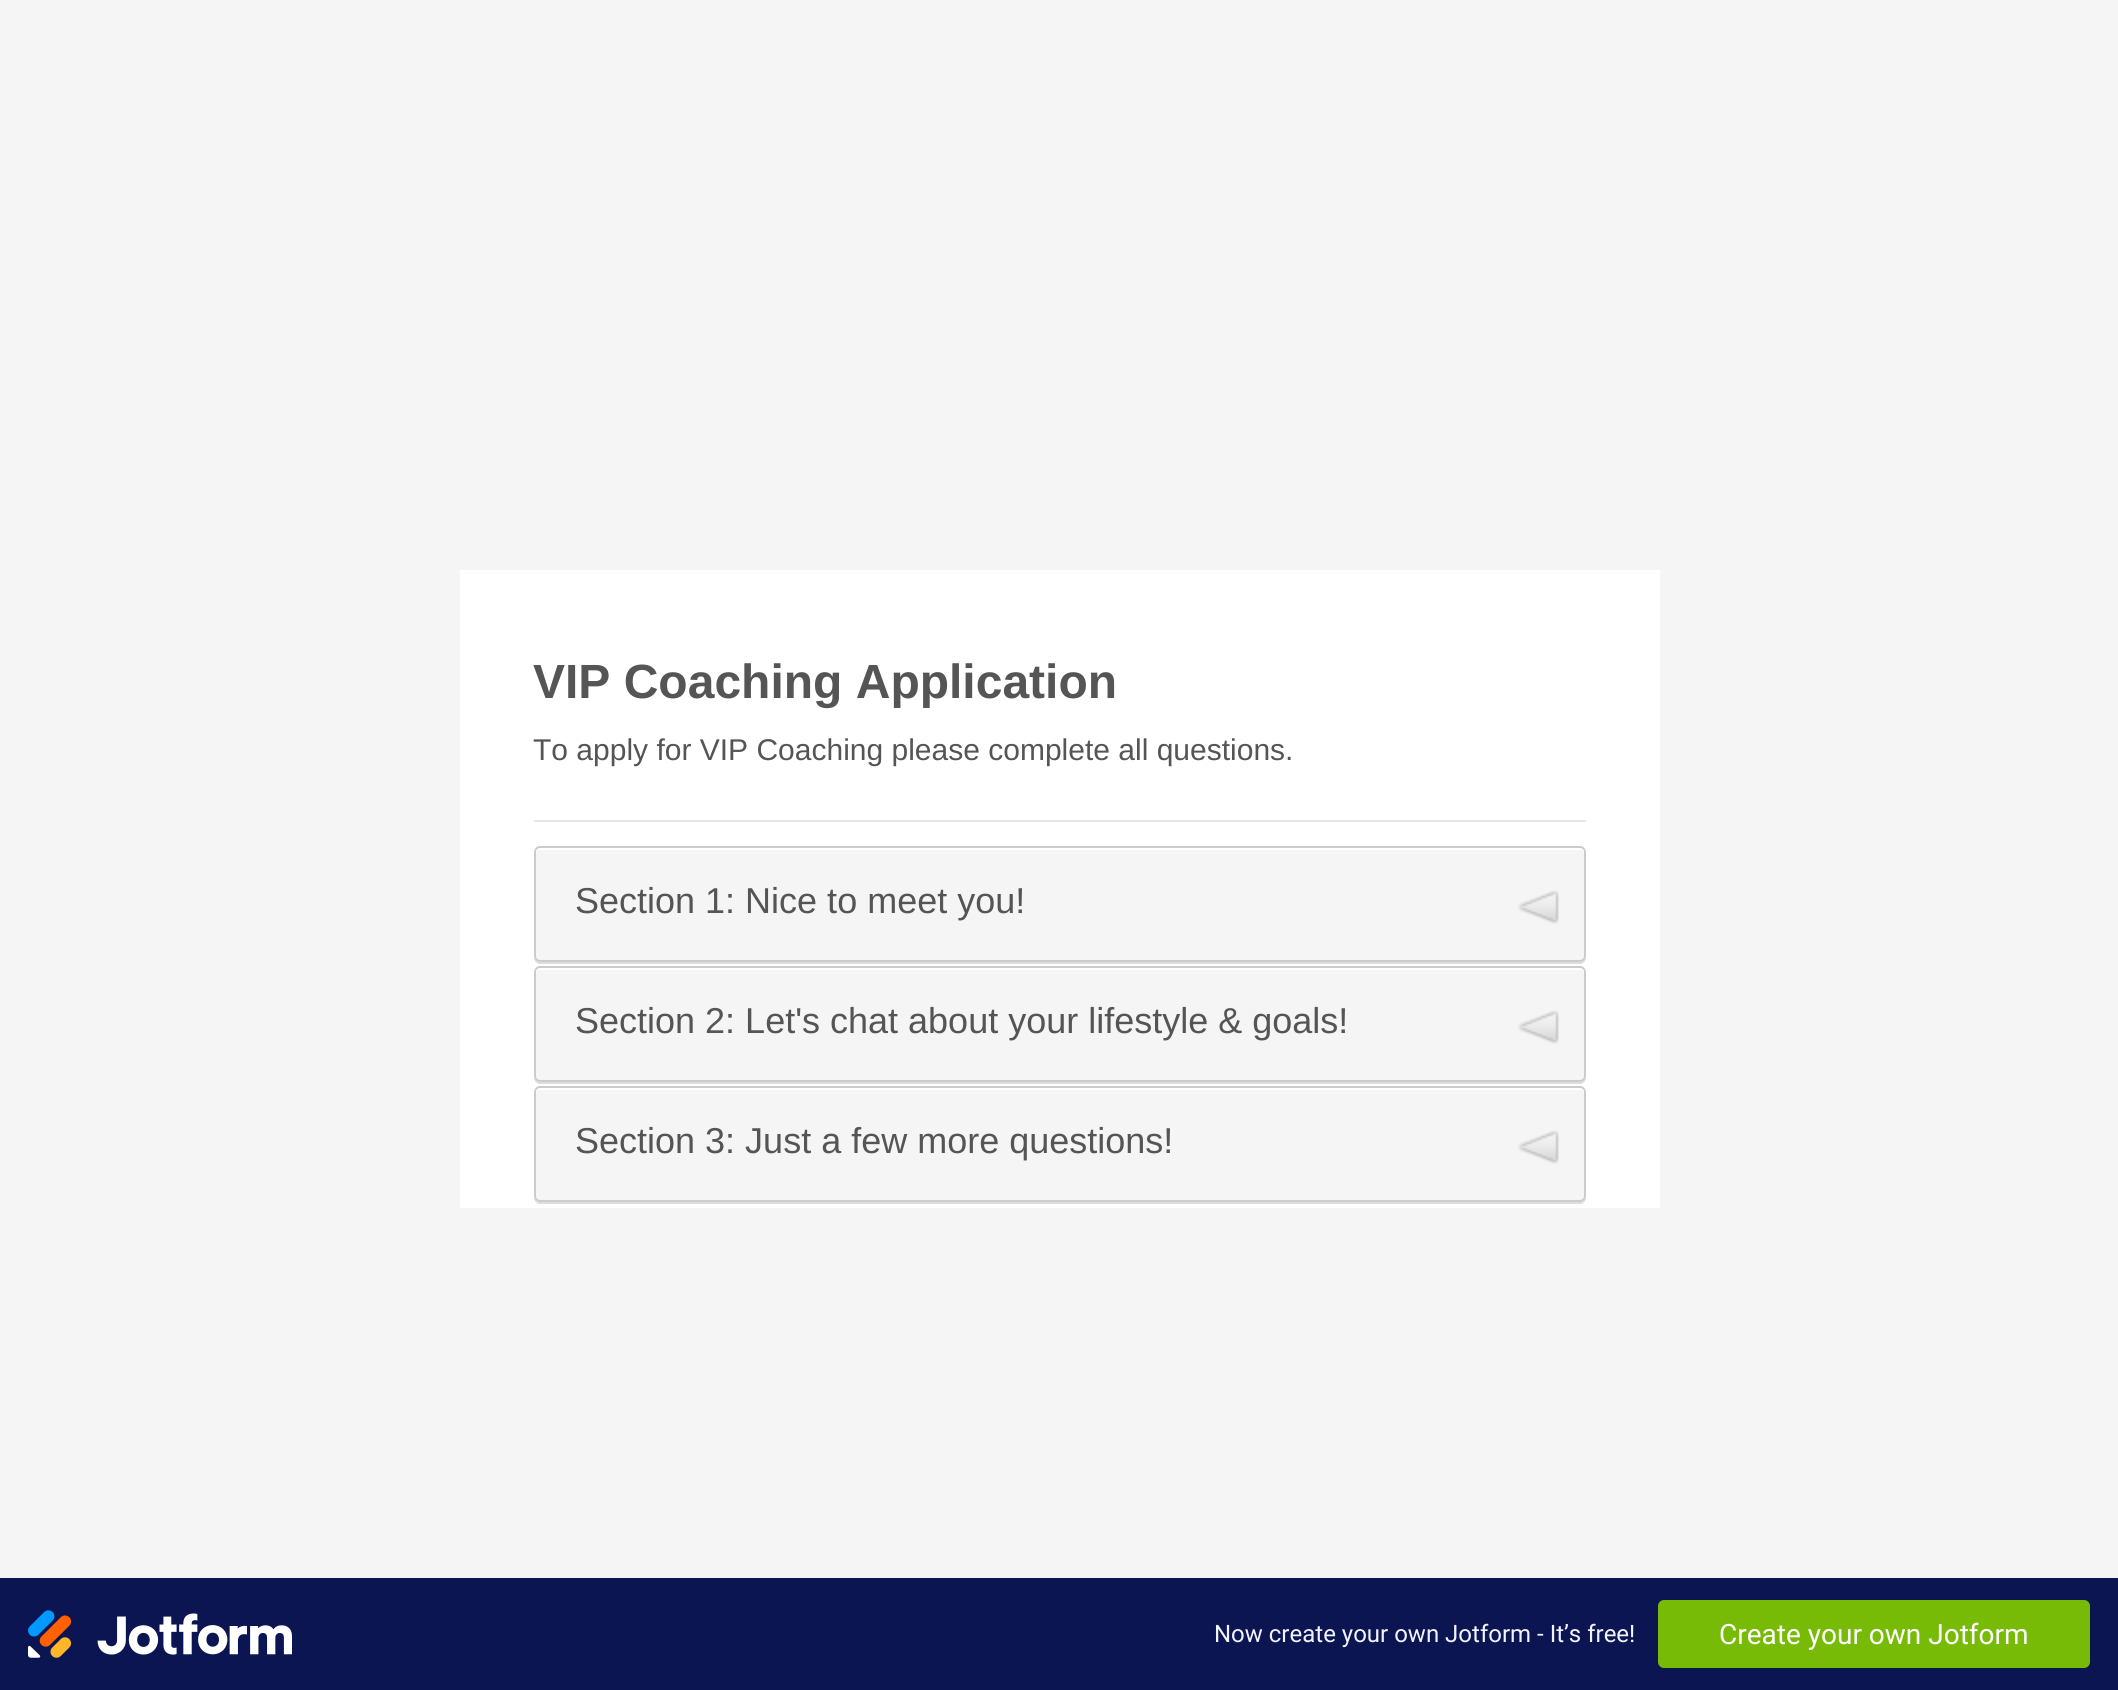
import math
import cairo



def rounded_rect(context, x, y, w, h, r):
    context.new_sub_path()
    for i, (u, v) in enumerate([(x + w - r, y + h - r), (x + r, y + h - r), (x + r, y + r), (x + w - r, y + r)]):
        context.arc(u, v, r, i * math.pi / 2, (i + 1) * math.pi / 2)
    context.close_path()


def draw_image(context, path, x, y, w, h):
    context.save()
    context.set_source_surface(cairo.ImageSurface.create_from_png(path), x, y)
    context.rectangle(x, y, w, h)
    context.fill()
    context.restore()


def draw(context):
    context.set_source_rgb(245 / 255, 245 / 255, 245 / 255)
    context.paint()
    context.set_source_rgb(1, 1, 1)
    context.rectangle(460, 570, 1200, 638)
    context.fill()
    context.set_source_rgb(230 / 255, 230 / 255, 230 / 255)
    context.rectangle(534, 820, 1052, 2)
    context.fill()
    context.set_source_rgb(221 / 255, 221 / 255, 221 / 255)
    context.new_path()
    context.move_to(534, 956)
    context.line_to(534, 958)
    context.curve_to(534, 961, 537, 964, 540, 964)
    context.line_to(1580, 964)
    context.curve_to(1583, 964, 1586, 961, 1586, 958)
    context.line_to(1586, 956)
    context.curve_to(1586, 959, 1583, 962, 1580, 962)
    context.line_to(540, 962)
    context.curve_to(537, 962, 534, 959, 534, 956)
    context.close_path()
    context.fill()
    context.set_source_rgb(245 / 255, 245 / 255, 245 / 255)
    rounded_rect(context, 534, 846, 1052, 116, 6)
    context.fill()
    context.set_source_rgb(1, 1, 1)
    context.new_path()
    context.move_to(540, 850)
    context.line_to(1580, 850)
    context.curve_to(1582, 850, 1584, 852, 1584, 854)
    context.line_to(1584, 852)
    context.curve_to(1584, 850, 1582, 848, 1580, 848)
    context.line_to(540, 848)
    context.curve_to(538, 848, 536, 850, 536, 852)
    context.line_to(536, 854)
    context.curve_to(536, 852, 538, 850, 540, 850)
    context.close_path()
    context.fill()
    rounded_rect(context, 535, 847, 1050, 114, 5)
    context.set_source_rgb(204 / 255, 204 / 255, 204 / 255)
    context.stroke()
    draw_image(context, "images/1.png", 1518, 890, 41, 34)
    context.set_source_rgb(221 / 255, 221 / 255, 221 / 255)
    context.new_path()
    context.move_to(534, 1076)
    context.line_to(534, 1078)
    context.curve_to(534, 1081, 537, 1084, 540, 1084)
    context.line_to(1580, 1084)
    context.curve_to(1583, 1084, 1586, 1081, 1586, 1078)
    context.line_to(1586, 1076)
    context.curve_to(1586, 1079, 1583, 1082, 1580, 1082)
    context.line_to(540, 1082)
    context.curve_to(537, 1082, 534, 1079, 534, 1076)
    context.close_path()
    context.fill()
    context.set_source_rgb(245 / 255, 245 / 255, 245 / 255)
    rounded_rect(context, 534, 966, 1052, 116, 6)
    context.fill()
    context.set_source_rgb(1, 1, 1)
    context.new_path()
    context.move_to(540, 970)
    context.line_to(1580, 970)
    context.curve_to(1582, 970, 1584, 972, 1584, 974)
    context.line_to(1584, 972)
    context.curve_to(1584, 970, 1582, 968, 1580, 968)
    context.line_to(540, 968)
    context.curve_to(538, 968, 536, 970, 536, 972)
    context.line_to(536, 974)
    context.curve_to(536, 972, 538, 970, 540, 970)
    context.close_path()
    context.fill()
    rounded_rect(context, 535, 967, 1050, 114, 5)
    context.set_source_rgb(204 / 255, 204 / 255, 204 / 255)
    context.stroke()
    draw_image(context, "images/1.png", 1518, 1010, 41, 34)
    context.set_source_rgb(221 / 255, 221 / 255, 221 / 255)
    context.new_path()
    context.move_to(534, 1196)
    context.line_to(534, 1198)
    context.curve_to(534, 1201, 537, 1204, 540, 1204)
    context.line_to(1580, 1204)
    context.curve_to(1583, 1204, 1586, 1201, 1586, 1198)
    context.line_to(1586, 1196)
    context.curve_to(1586, 1199, 1583, 1202, 1580, 1202)
    context.line_to(540, 1202)
    context.curve_to(537, 1202, 534, 1199, 534, 1196)
    context.close_path()
    context.fill()
    context.set_source_rgb(245 / 255, 245 / 255, 245 / 255)
    rounded_rect(context, 534, 1086, 1052, 116, 6)
    context.fill()
    context.set_source_rgb(1, 1, 1)
    context.new_path()
    context.move_to(540, 1090)
    context.line_to(1580, 1090)
    context.curve_to(1582, 1090, 1584, 1092, 1584, 1094)
    context.line_to(1584, 1092)
    context.curve_to(1584, 1090, 1582, 1088, 1580, 1088)
    context.line_to(540, 1088)
    context.curve_to(538, 1088, 536, 1090, 536, 1092)
    context.line_to(536, 1094)
    context.curve_to(536, 1092, 538, 1090, 540, 1090)
    context.close_path()
    context.fill()
    rounded_rect(context, 535, 1087, 1050, 114, 5)
    context.set_source_rgb(204 / 255, 204 / 255, 204 / 255)
    context.stroke()
    draw_image(context, "images/1.png", 1518, 1130, 41, 34)
    context.set_source_rgb(10 / 255, 21 / 255, 81 / 255)
    context.rectangle(0, 1578, 2118, 112)
    context.fill()
    draw_image(context, "images/2.png", 28, 1610, 264, 48)
    context.set_source_rgb(120 / 255, 187 / 255, 7 / 255)
    rounded_rect(context, 1658, 1600, 432, 68, 6)
    context.fill()
    context.select_font_face("Liberation Sans", cairo.FontSlant.NORMAL, cairo.FontWeight.BOLD)
    context.set_font_size(48)
    context.set_source_rgb(85 / 255, 85 / 255, 85 / 255)
    context.move_to(533, 698)
    context.show_text("VIP Coaching Application")
    context.select_font_face("Liberation Sans")
    context.set_font_size(30)
    context.move_to(533, 760)
    context.show_text("To apply for VIP Coaching please complete all questions.")
    context.set_font_size(36)
    context.move_to(575, 913)
    context.show_text("Section 1: Nice to meet you!")
    context.move_to(575, 1033)
    context.show_text("Section 2: Let's chat about your lifestyle & goals!")
    context.move_to(575, 1153)
    context.show_text("Section 3: Just a few more questions!")
    context.select_font_face("Roboto")
    context.set_font_size(24)
    context.set_source_rgb(243 / 255, 243 / 255, 254 / 255)
    context.move_to(1214, 1642)
    context.show_text("Now create your own Jotform - It’s free!")
    context.set_font_size(28)
    context.set_source_rgb(1, 1, 1)
    context.move_to(1719, 1644)
    context.show_text("Create your own Jotform")


surface = cairo.ImageSurface(cairo.Format.RGB24, 2118, 1690)
context = cairo.Context(surface)
options = cairo.FontOptions()
options.set_hint_metrics(cairo.HintMetrics.OFF)
options.set_hint_style(cairo.HintStyle.NONE)
context.set_font_options(options)
context.set_miter_limit(4)
draw(context)
surface.write_to_png("out.png")
